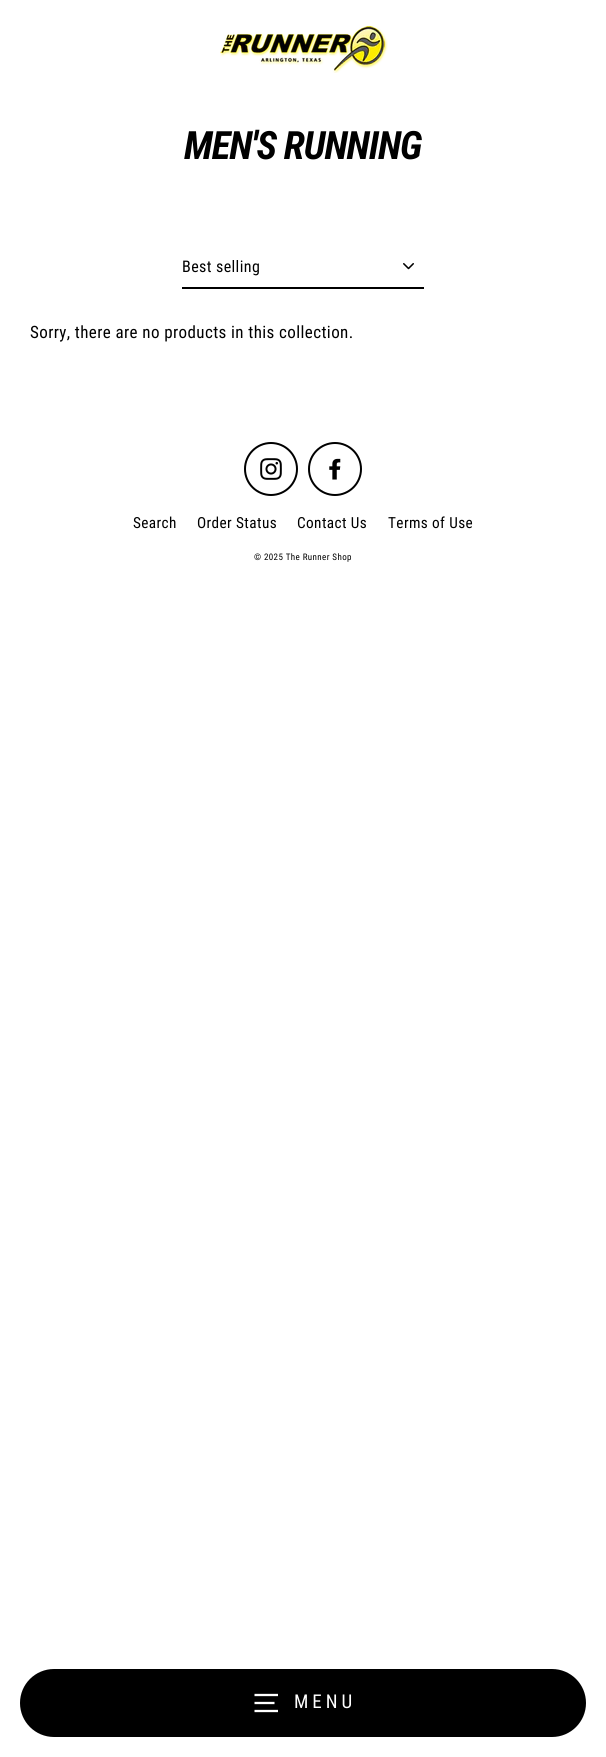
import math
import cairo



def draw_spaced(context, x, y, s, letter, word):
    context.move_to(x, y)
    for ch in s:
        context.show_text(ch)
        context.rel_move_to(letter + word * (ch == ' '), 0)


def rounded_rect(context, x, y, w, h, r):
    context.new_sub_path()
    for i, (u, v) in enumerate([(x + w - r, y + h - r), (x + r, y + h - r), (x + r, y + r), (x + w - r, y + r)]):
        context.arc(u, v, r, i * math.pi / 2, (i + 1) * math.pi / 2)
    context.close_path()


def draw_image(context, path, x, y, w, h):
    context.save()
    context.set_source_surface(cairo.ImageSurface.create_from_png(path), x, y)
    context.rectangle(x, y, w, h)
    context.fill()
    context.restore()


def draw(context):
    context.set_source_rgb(1, 1, 1)
    context.paint()
    draw_image(context, "images/1.png", 403, 263, 11, 7)
    context.set_source_rgb(0, 0, 0)
    context.rectangle(182, 287, 242, 2)
    context.fill()
    context.arc(271, 469, 26, 0, 2 * math.pi)
    context.stroke()
    draw_image(context, "images/2.png", 260, 458, 22, 22)
    context.arc(335, 469, 26, 0, 2 * math.pi)
    context.stroke()
    draw_image(context, "images/3.png", 329, 458, 12, 22)
    draw_image(context, "images/4.png", 220, 25, 168, 48)
    rounded_rect(context, 20, 1669, 566, 68, 34)
    context.fill()
    context.new_path()
    context.move_to(254.5, 1695)
    context.line_to(278, 1695)
    context.move_to(254.5, 1703)
    context.line_to(274.5, 1703)
    context.move_to(254.5, 1711)
    context.line_to(278, 1711)
    context.set_source_rgb(1, 1, 1)
    context.set_line_width(2.3)
    context.stroke()
    context.select_font_face("Roboto Condensed", cairo.FontSlant.ITALIC, cairo.FontWeight.BOLD)
    context.set_font_size(39)
    context.set_source_rgb(0, 0, 0)
    draw_spaced(context, 184, 159, "MEN'S RUNNING", -1, 0)
    context.select_font_face("Roboto Condensed")
    context.set_font_size(16)
    draw_spaced(context, 182, 272, "Best selling", 0.4, 0)
    context.set_font_size(17)
    draw_spaced(context, 30, 338, "Sorry, there are no products in this collection.", 0.4, 0)
    context.set_font_size(15.25)
    draw_spaced(context, 133, 528, "Search", 0.4, 0)
    draw_spaced(context, 197, 528, "Order Status", 0.4, 0)
    draw_spaced(context, 297, 528, "Contact Us", 0.4, 0)
    draw_spaced(context, 388, 528, "Terms of Use", 0.4, 0)
    context.set_font_size(9)
    draw_spaced(context, 254, 560, "© 2025 The Runner Shop", 0.4, 0)
    context.set_font_size(19)
    context.set_source_rgb(1, 1, 1)
    draw_spaced(context, 294, 1708, "MENU", 4, 0)


surface = cairo.ImageSurface(cairo.Format.RGB24, 606, 1757)
context = cairo.Context(surface)
options = cairo.FontOptions()
options.set_hint_metrics(cairo.HintMetrics.OFF)
options.set_hint_style(cairo.HintStyle.NONE)
context.set_font_options(options)
context.set_miter_limit(4)
draw(context)
surface.write_to_png("out.png")
